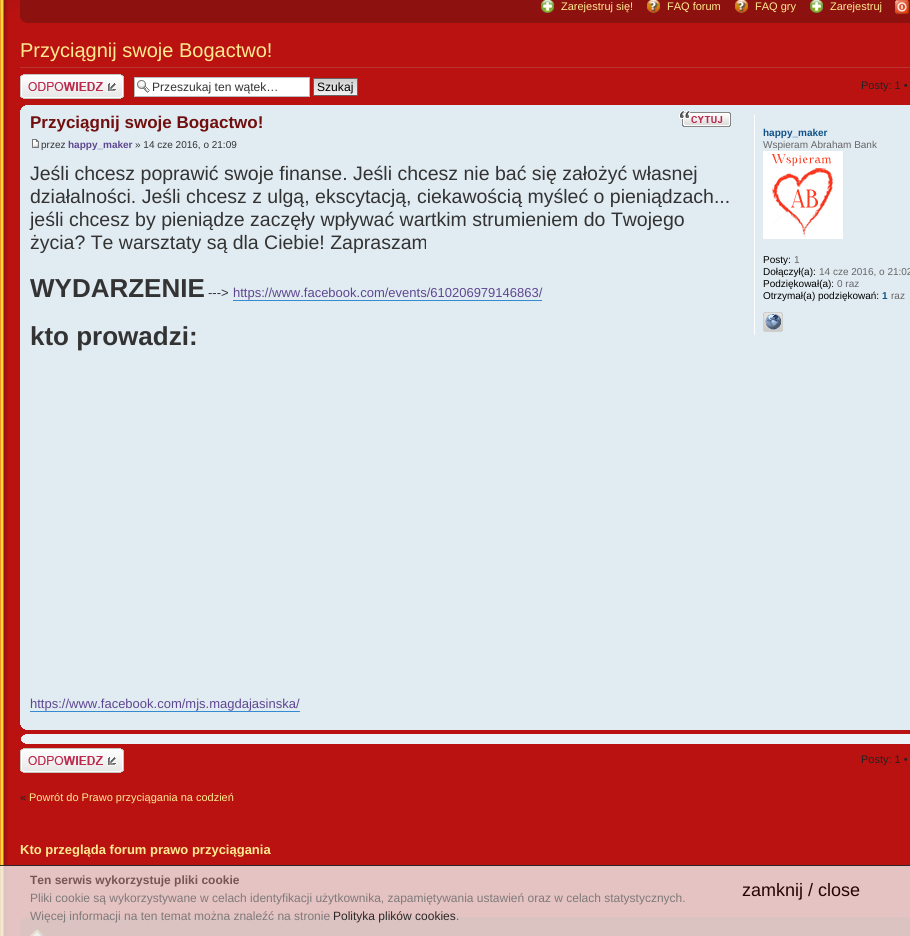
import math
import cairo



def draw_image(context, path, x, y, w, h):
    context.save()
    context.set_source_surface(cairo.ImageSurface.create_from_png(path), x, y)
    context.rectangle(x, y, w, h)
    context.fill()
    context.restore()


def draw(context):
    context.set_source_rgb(1, 1, 1)
    context.paint()
    draw_image(context, "images/1.png", 0, 15, 910, 921)
    draw_image(context, "images/2.png", 0, 0, 20, 15)
    context.set_source_rgb(141 / 255, 18 / 255, 15 / 255)
    context.rectangle(20, 0, 890, 23)
    context.fill()
    draw_image(context, "images/3.png", 541, 0, 13, 13)
    draw_image(context, "images/4.png", 647, 0, 13, 13)
    draw_image(context, "images/4.png", 735, 0, 13, 13)
    draw_image(context, "images/3.png", 810, 0, 13, 13)
    draw_image(context, "images/5.png", 895, 0, 14, 14)
    draw_image(context, "images/6.png", 20, 18, 5, 5)
    context.set_source_rgb(187 / 255, 51 / 255, 51 / 255)
    context.rectangle(20, 67, 890, 1)
    context.fill()
    draw_image(context, "images/7.png", 20, 74, 104, 25)
    context.set_source_rgb(1, 1, 1)
    context.rectangle(135, 78, 174, 18)
    context.fill()
    draw_image(context, "images/8.png", 137, 80, 13, 13)
    context.rectangle(134.5, 77.5, 175, 19)
    context.set_source_rgb(180 / 255, 186 / 255, 192 / 255)
    context.set_line_width(1)
    context.stroke()
    draw_image(context, "images/9.png", 314, 79, 43, 16)
    context.rectangle(313.5, 78.5, 44, 17)
    context.set_source_rgb(102 / 255, 102 / 255, 102 / 255)
    context.stroke()
    context.set_source_rgb(225 / 255, 235 / 255, 242 / 255)
    context.rectangle(20, 105, 890, 625)
    context.fill()
    draw_image(context, "images/10.png", 20, 105, 5, 5)
    draw_image(context, "images/11.png", 679, 110, 10, 8)
    draw_image(context, "images/12.png", 680, 111, 51, 16)
    draw_image(context, "images/13.png", 32, 139, 7, 9)
    context.set_source_rgb(54 / 255, 138 / 255, 210 / 255)
    context.rectangle(233, 300, 309, 1)
    context.fill()
    context.rectangle(30, 711, 270, 1)
    context.fill()
    context.set_source_rgb(1, 1, 1)
    context.rectangle(754, 115, 1, 220)
    context.fill()
    draw_image(context, "images/14.png", 763, 151, 80, 88)
    draw_image(context, "images/15.png", 763, 312, 20, 20)
    draw_image(context, "images/16.png", 20, 725, 5, 5)
    context.set_source_rgb(236 / 255, 243 / 255, 247 / 255)
    context.rectangle(21, 734, 889, 10)
    context.fill()
    draw_image(context, "images/17.png", 20, 734, 5, 5)
    draw_image(context, "images/18.png", 20, 739, 5, 5)
    draw_image(context, "images/7.png", 20, 748, 104, 25)
    context.set_source_rgb(141 / 255, 18 / 255, 15 / 255)
    context.rectangle(20, 917, 890, 19)
    context.fill()
    draw_image(context, "images/19.png", 20, 917, 5, 5)
    draw_image(context, "images/20.png", 30, 929, 14, 7)
    context.set_source_rgba(238 / 255, 238 / 255, 238 / 255, 0.8)
    context.rectangle(0, 865, 910, 71)
    context.fill()
    context.set_source_rgba(0, 0, 0, 0.8)
    context.rectangle(0, 865, 910, 1)
    context.fill()
    context.select_font_face("Liberation Sans")
    context.set_font_size(11)
    context.set_source_rgb(1, 234 / 255, 144 / 255)
    context.move_to(561, 10)
    context.show_text("Zarejestruj się!")
    context.move_to(667, 10)
    context.show_text("FAQ forum")
    context.move_to(755, 10)
    context.show_text("FAQ gry")
    context.move_to(830, 10)
    context.show_text("Zarejestruj")
    context.set_font_size(20)
    context.move_to(20, 57)
    context.show_text("Przyciągnij swoje Bogactwo!")
    context.set_font_size(12.1)
    context.set_source_rgb(51 / 255, 51 / 255, 51 / 255)
    context.move_to(152, 91)
    context.show_text("Przeszukaj ten wątek…")
    context.set_source_rgb(0, 0, 0)
    context.move_to(317, 91)
    context.show_text("Szukaj")
    context.set_font_size(11)
    context.set_source_rgb(34 / 255, 34 / 255, 34 / 255)
    context.move_to(861, 89)
    context.show_text("Posty: 1 •")
    context.select_font_face("Liberation Sans", cairo.FontSlant.NORMAL, cairo.FontWeight.BOLD)
    context.set_font_size(17)
    context.set_source_rgb(112 / 255, 15 / 255, 14 / 255)
    context.move_to(30, 128)
    context.show_text("Przyciągnij swoje Bogactwo!")
    context.select_font_face("Liberation Sans")
    context.set_font_size(10)
    context.set_source_rgb(51 / 255, 51 / 255, 51 / 255)
    context.move_to(41, 148)
    context.show_text("przez")
    context.select_font_face("Liberation Sans", cairo.FontSlant.NORMAL, cairo.FontWeight.BOLD)
    context.set_source_rgb(95 / 255, 71 / 255, 144 / 255)
    context.move_to(68, 148)
    context.show_text("happy_maker")
    context.select_font_face("Liberation Sans")
    context.set_source_rgb(51 / 255, 51 / 255, 51 / 255)
    context.move_to(135, 148)
    context.show_text("» 14 cze 2016, o 21:09")
    context.set_font_size(19.5)
    context.move_to(30, 180)
    context.show_text("Jeśli chcesz poprawić swoje finanse. Jeśli chcesz nie bać się założyć własnej")
    context.move_to(30, 203)
    context.show_text("działalności. Jeśli chcesz z ulgą, ekscytacją, ciekawością myśleć o pieniądzach...")
    context.move_to(30, 226)
    context.show_text("jeśli chcesz by pieniądze zaczęły wpływać wartkim strumieniem do Twojego")
    context.move_to(30, 249)
    context.show_text("życia? Te warsztaty są dla Ciebie! Zapraszam")
    context.select_font_face("Liberation Sans", cairo.FontSlant.NORMAL, cairo.FontWeight.BOLD)
    context.set_font_size(26)
    context.move_to(30, 297)
    context.show_text("WYDARZENIE")
    context.select_font_face("Liberation Sans")
    context.set_font_size(13)
    context.move_to(208, 297)
    context.show_text("--->")
    context.set_source_rgb(95 / 255, 71 / 255, 144 / 255)
    context.move_to(233, 297)
    context.show_text("https://www.facebook.com/events/610206979146863/")
    context.select_font_face("Liberation Sans", cairo.FontSlant.NORMAL, cairo.FontWeight.BOLD)
    context.set_font_size(26)
    context.set_source_rgb(51 / 255, 51 / 255, 51 / 255)
    context.move_to(30, 345)
    context.show_text("kto prowadzi:")
    context.select_font_face("Liberation Sans")
    context.set_font_size(13)
    context.set_source_rgb(95 / 255, 71 / 255, 144 / 255)
    context.move_to(30, 708)
    context.show_text("https://www.facebook.com/mjs.magdajasinska/")
    context.select_font_face("Liberation Sans", cairo.FontSlant.NORMAL, cairo.FontWeight.BOLD)
    context.set_font_size(10)
    context.set_source_rgb(16 / 255, 82 / 255, 137 / 255)
    context.move_to(763, 136)
    context.show_text("happy_maker")
    context.select_font_face("Liberation Sans")
    context.set_source_rgb(102 / 255, 102 / 255, 102 / 255)
    context.move_to(763, 148)
    context.show_text("Wspieram Abraham Bank")
    context.set_source_rgb(0, 0, 0)
    context.move_to(763, 263)
    context.show_text("Posty:")
    context.set_source_rgb(102 / 255, 102 / 255, 102 / 255)
    context.move_to(794, 263)
    context.show_text("1")
    context.set_source_rgb(0, 0, 0)
    context.move_to(763, 275)
    context.show_text("Dołączył(a):")
    context.set_source_rgb(102 / 255, 102 / 255, 102 / 255)
    context.move_to(819, 275)
    context.show_text("14 cze 2016, o 21:02")
    context.set_source_rgb(0, 0, 0)
    context.move_to(763, 287)
    context.show_text("Podziękował(a):")
    context.set_source_rgb(102 / 255, 102 / 255, 102 / 255)
    context.move_to(837, 287)
    context.show_text("0 raz")
    context.set_source_rgb(0, 0, 0)
    context.move_to(763, 299)
    context.show_text("Otrzymał(a) podziękowań:")
    context.select_font_face("Liberation Sans", cairo.FontSlant.NORMAL, cairo.FontWeight.BOLD)
    context.set_source_rgb(16 / 255, 82 / 255, 137 / 255)
    context.move_to(882, 299)
    context.show_text("1")
    context.select_font_face("Liberation Sans")
    context.set_source_rgb(102 / 255, 102 / 255, 102 / 255)
    context.move_to(891, 299)
    context.show_text("raz")
    context.set_font_size(11)
    context.set_source_rgb(34 / 255, 34 / 255, 34 / 255)
    context.move_to(861, 763)
    context.show_text("Posty: 1 •")
    context.move_to(20, 801)
    context.show_text("«")
    context.set_source_rgb(1, 234 / 255, 144 / 255)
    context.move_to(29, 801)
    context.show_text("Powrót do Prawo przyciągania na codzień")
    context.select_font_face("Liberation Sans", cairo.FontSlant.NORMAL, cairo.FontWeight.BOLD)
    context.set_font_size(13)
    context.move_to(20, 854)
    context.show_text("Kto przegląda forum prawo przyciągania")
    context.set_font_size(12)
    context.set_source_rgb(119 / 255, 85 / 255, 85 / 255)
    context.move_to(30, 884)
    context.show_text("Ten serwis wykorzystuje pliki cookie")
    context.select_font_face("Liberation Sans")
    context.set_source_rgb(127 / 255, 121 / 255, 121 / 255)
    context.move_to(30, 902)
    context.show_text("Pliki cookie są wykorzystywane w celach identyfikacji użytkownika, zapamiętywania ustawień oraz w celach statystycznych.")
    context.move_to(30, 920)
    context.show_text("Więcej informacji na ten temat można znaleźć na stronie")
    context.set_source_rgb(45 / 255, 39 / 255, 39 / 255)
    context.move_to(333, 920)
    context.show_text("Polityka plików cookies")
    context.set_source_rgb(110 / 255, 85 / 255, 85 / 255)
    context.move_to(456, 920)
    context.show_text(".")
    context.set_font_size(18)
    context.set_source_rgb(37 / 255, 4 / 255, 3 / 255)
    context.move_to(742, 896)
    context.show_text("zamknij / close")


surface = cairo.ImageSurface(cairo.Format.RGB24, 910, 936)
context = cairo.Context(surface)
options = cairo.FontOptions()
options.set_hint_metrics(cairo.HintMetrics.OFF)
options.set_hint_style(cairo.HintStyle.NONE)
context.set_font_options(options)
context.set_miter_limit(4)
draw(context)
surface.write_to_png("out.png")
